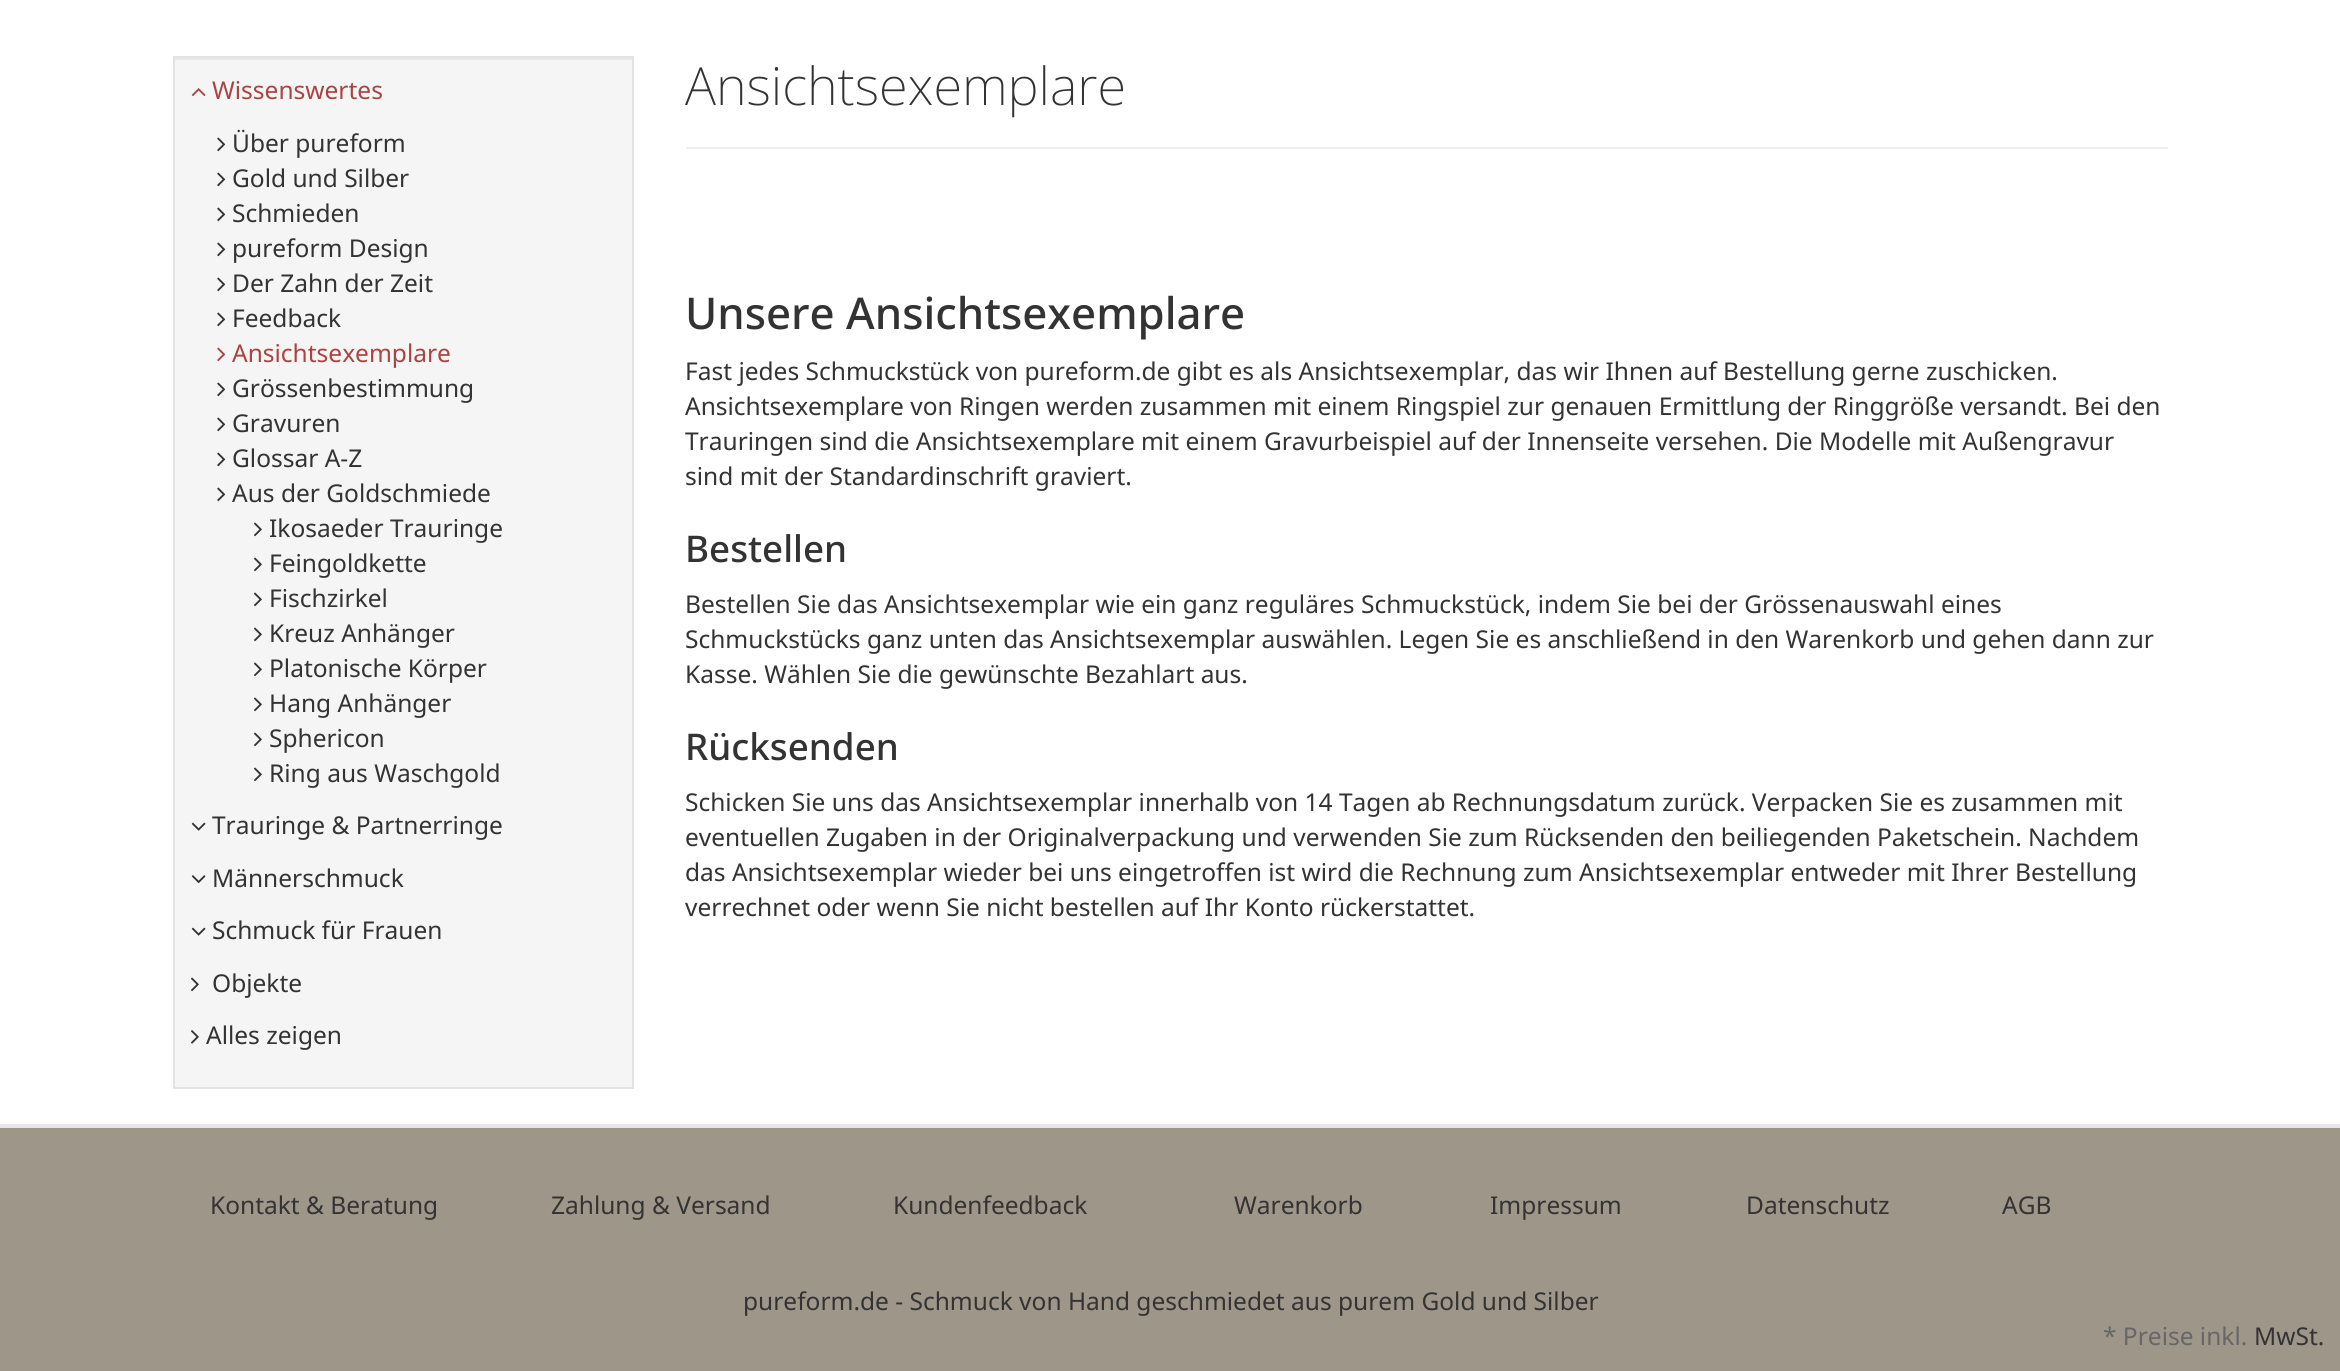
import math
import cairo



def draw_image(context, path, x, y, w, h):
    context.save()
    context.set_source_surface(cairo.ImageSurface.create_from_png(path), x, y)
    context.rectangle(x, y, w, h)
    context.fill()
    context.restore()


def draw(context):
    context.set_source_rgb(159 / 255, 150 / 255, 138 / 255)
    context.paint()
    context.set_source_rgb(1, 1, 1)
    context.rectangle(0, 0, 2340, 1124)
    context.fill()
    context.set_source_rgb(245 / 255, 245 / 255, 245 / 255)
    context.rectangle(175, 60, 457, 1027)
    context.fill()
    context.set_source_rgb(233 / 255, 233 / 255, 233 / 255)
    context.rectangle(175, 58, 457, 2)
    context.fill()
    context.rectangle(174, 57, 459, 1031)
    context.set_source_rgb(227 / 255, 227 / 255, 227 / 255)
    context.stroke()
    draw_image(context, "images/1.png", 191, 88, 15, 8)
    draw_image(context, "images/2.png", 217, 137, 9, 15)
    draw_image(context, "images/2.png", 217, 172, 9, 15)
    draw_image(context, "images/2.png", 217, 207, 9, 15)
    draw_image(context, "images/2.png", 217, 242, 9, 15)
    draw_image(context, "images/2.png", 217, 277, 9, 15)
    draw_image(context, "images/2.png", 217, 312, 9, 15)
    draw_image(context, "images/3.png", 217, 347, 9, 15)
    draw_image(context, "images/2.png", 217, 382, 9, 15)
    draw_image(context, "images/2.png", 217, 417, 9, 15)
    draw_image(context, "images/2.png", 217, 452, 9, 15)
    draw_image(context, "images/2.png", 217, 487, 9, 15)
    draw_image(context, "images/4.png", 254, 522, 8, 15)
    draw_image(context, "images/4.png", 254, 557, 8, 15)
    draw_image(context, "images/4.png", 254, 592, 8, 15)
    draw_image(context, "images/4.png", 254, 627, 8, 15)
    draw_image(context, "images/4.png", 254, 662, 8, 15)
    draw_image(context, "images/4.png", 254, 697, 8, 15)
    draw_image(context, "images/4.png", 254, 732, 8, 15)
    draw_image(context, "images/4.png", 254, 767, 8, 15)
    draw_image(context, "images/5.png", 191, 822, 15, 9)
    draw_image(context, "images/6.png", 191, 875, 15, 9)
    draw_image(context, "images/5.png", 191, 927, 15, 9)
    draw_image(context, "images/4.png", 191, 977, 8, 15)
    draw_image(context, "images/7.png", 191, 1030, 8, 14)
    context.set_source_rgb(238 / 255, 238 / 255, 238 / 255)
    context.rectangle(686, 147, 1482, 2)
    context.fill()
    context.set_source_rgb(231 / 255, 231 / 255, 231 / 255)
    context.rectangle(0, 1124, 2340, 4)
    context.fill()
    context.select_font_face("Noto Sans")
    context.set_font_size(24.5)
    context.set_source_rgb(169 / 255, 68 / 255, 66 / 255)
    context.move_to(212, 99)
    context.show_text("Wissenswertes")
    context.set_source_rgb(51 / 255, 51 / 255, 51 / 255)
    context.move_to(232, 152)
    context.show_text("Über pureform")
    context.move_to(232, 187)
    context.show_text("Gold und Silber")
    context.move_to(232, 222)
    context.show_text("Schmieden")
    context.move_to(232, 257)
    context.show_text("pureform Design")
    context.move_to(232, 292)
    context.show_text("Der Zahn der Zeit")
    context.move_to(232, 327)
    context.show_text("Feedback")
    context.set_source_rgb(169 / 255, 68 / 255, 66 / 255)
    context.move_to(232, 362)
    context.show_text("Ansichtsexemplare")
    context.set_source_rgb(51 / 255, 51 / 255, 51 / 255)
    context.move_to(232, 397)
    context.show_text("Grössenbestimmung")
    context.move_to(232, 432)
    context.show_text("Gravuren")
    context.move_to(232, 467)
    context.show_text("Glossar A-Z")
    context.move_to(232, 502)
    context.show_text("Aus der Goldschmiede")
    context.move_to(269, 537)
    context.show_text("Ikosaeder Trauringe")
    context.move_to(269, 572)
    context.show_text("Feingoldkette")
    context.move_to(269, 607)
    context.show_text("Fischzirkel")
    context.move_to(269, 642)
    context.show_text("Kreuz Anhänger")
    context.move_to(269, 677)
    context.show_text("Platonische Körper")
    context.move_to(269, 712)
    context.show_text("Hang Anhänger")
    context.move_to(269, 747)
    context.show_text("Sphericon")
    context.move_to(269, 782)
    context.show_text("Ring aus Waschgold")
    context.move_to(212, 834)
    context.show_text("Trauringe & Partnerringe")
    context.move_to(212, 887)
    context.show_text("Männerschmuck")
    context.move_to(212, 939)
    context.show_text("Schmuck für Frauen")
    context.move_to(212, 992)
    context.show_text("Objekte")
    context.move_to(206, 1044)
    context.show_text("Alles zeigen")
    context.select_font_face("Noto Sans ExtraLight")
    context.set_font_size(52.5)
    context.move_to(685, 105)
    context.show_text("Ansichtsexemplare")
    context.select_font_face("Noto Sans Medium")
    context.set_font_size(43.75)
    context.move_to(685, 329)
    context.show_text("Unsere Ansichtsexemplare")
    context.select_font_face("Noto Sans")
    context.set_font_size(24.5)
    context.move_to(685, 380)
    context.show_text("Fast jedes Schmuckstück von pureform.de gibt es als Ansichtsexemplar, das wir Ihnen auf Bestellung gerne zuschicken.")
    context.move_to(685, 415)
    context.show_text("Ansichtsexemplare von Ringen werden zusammen mit einem Ringspiel zur genauen Ermittlung der Ringgröße versandt. Bei den")
    context.move_to(685, 450)
    context.show_text("Trauringen sind die Ansichtsexemplare mit einem Gravurbeispiel auf der Innenseite versehen. Die Modelle mit Außengravur")
    context.move_to(685, 485)
    context.show_text("sind mit der Standardinschrift graviert.")
    context.select_font_face("Noto Sans Medium")
    context.set_font_size(36.75)
    context.move_to(685, 562)
    context.show_text("Bestellen")
    context.select_font_face("Noto Sans")
    context.set_font_size(24.5)
    context.move_to(685, 613)
    context.show_text("Bestellen Sie das Ansichtsexemplar wie ein ganz reguläres Schmuckstück, indem Sie bei der Grössenauswahl eines")
    context.move_to(685, 648)
    context.show_text("Schmuckstücks ganz unten das Ansichtsexemplar auswählen. Legen Sie es anschließend in den Warenkorb und gehen dann zur")
    context.move_to(685, 683)
    context.show_text("Kasse. Wählen Sie die gewünschte Bezahlart aus.")
    context.select_font_face("Noto Sans Medium")
    context.set_font_size(36.75)
    context.move_to(685, 760)
    context.show_text("Rücksenden")
    context.select_font_face("Noto Sans")
    context.set_font_size(24.5)
    context.move_to(685, 811)
    context.show_text("Schicken Sie uns das Ansichtsexemplar innerhalb von 14 Tagen ab Rechnungsdatum zurück. Verpacken Sie es zusammen mit")
    context.move_to(685, 846)
    context.show_text("eventuellen Zugaben in der Originalverpackung und verwenden Sie zum Rücksenden den beiliegenden Paketschein. Nachdem")
    context.move_to(685, 881)
    context.show_text("das Ansichtsexemplar wieder bei uns eingetroffen ist wird die Rechnung zum Ansichtsexemplar entweder mit Ihrer Bestellung")
    context.move_to(685, 916)
    context.show_text("verrechnet oder wenn Sie nicht bestellen auf Ihr Konto rückerstattet.")
    context.move_to(210, 1214)
    context.show_text("Kontakt & Beratung")
    context.move_to(551, 1214)
    context.show_text("Zahlung & Versand")
    context.move_to(893, 1214)
    context.show_text("Kundenfeedback")
    context.move_to(1234, 1214)
    context.show_text("Warenkorb")
    context.move_to(1490, 1214)
    context.show_text("Impressum")
    context.move_to(1746, 1214)
    context.show_text("Datenschutz")
    context.move_to(2002, 1214)
    context.show_text("AGB")
    context.move_to(743, 1310)
    context.show_text("pureform.de - Schmuck von Hand geschmiedet aus purem Gold und Silber")
    context.set_source_rgb(102 / 255, 102 / 255, 102 / 255)
    context.move_to(2103, 1345)
    context.show_text("* Preise inkl.")
    context.set_source_rgb(51 / 255, 51 / 255, 51 / 255)
    context.move_to(2254, 1345)
    context.show_text("MwSt.")


surface = cairo.ImageSurface(cairo.Format.RGB24, 2340, 1371)
context = cairo.Context(surface)
options = cairo.FontOptions()
options.set_hint_metrics(cairo.HintMetrics.OFF)
options.set_hint_style(cairo.HintStyle.NONE)
context.set_font_options(options)
context.set_miter_limit(4)
draw(context)
surface.write_to_png("out.png")
